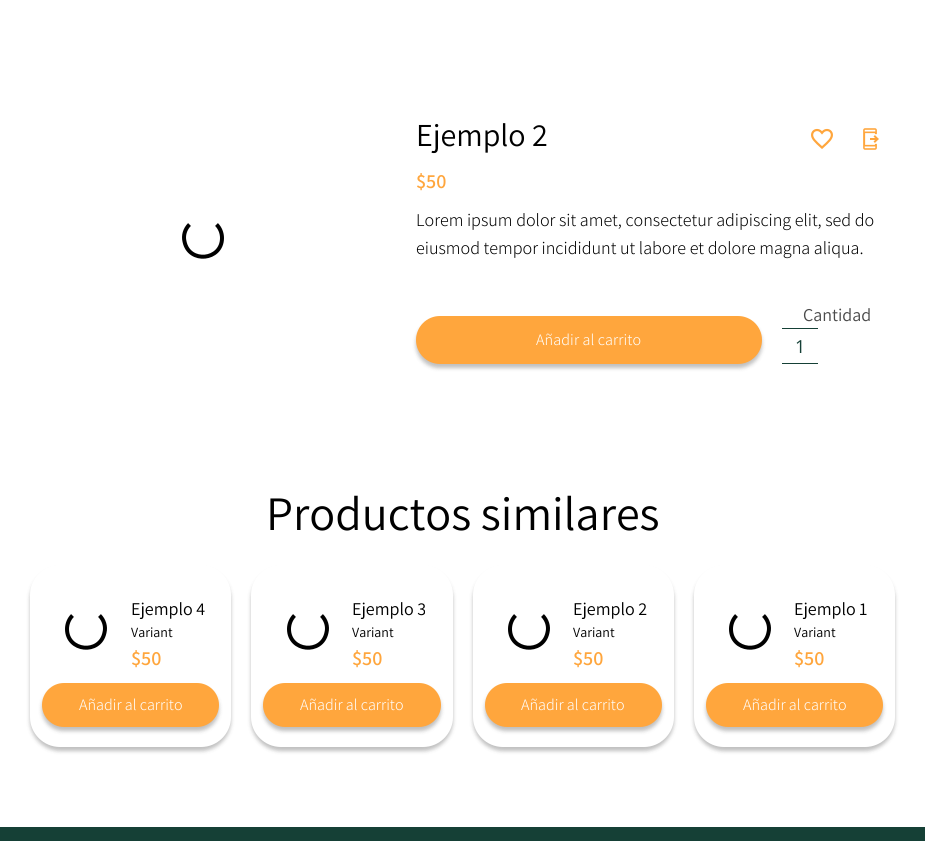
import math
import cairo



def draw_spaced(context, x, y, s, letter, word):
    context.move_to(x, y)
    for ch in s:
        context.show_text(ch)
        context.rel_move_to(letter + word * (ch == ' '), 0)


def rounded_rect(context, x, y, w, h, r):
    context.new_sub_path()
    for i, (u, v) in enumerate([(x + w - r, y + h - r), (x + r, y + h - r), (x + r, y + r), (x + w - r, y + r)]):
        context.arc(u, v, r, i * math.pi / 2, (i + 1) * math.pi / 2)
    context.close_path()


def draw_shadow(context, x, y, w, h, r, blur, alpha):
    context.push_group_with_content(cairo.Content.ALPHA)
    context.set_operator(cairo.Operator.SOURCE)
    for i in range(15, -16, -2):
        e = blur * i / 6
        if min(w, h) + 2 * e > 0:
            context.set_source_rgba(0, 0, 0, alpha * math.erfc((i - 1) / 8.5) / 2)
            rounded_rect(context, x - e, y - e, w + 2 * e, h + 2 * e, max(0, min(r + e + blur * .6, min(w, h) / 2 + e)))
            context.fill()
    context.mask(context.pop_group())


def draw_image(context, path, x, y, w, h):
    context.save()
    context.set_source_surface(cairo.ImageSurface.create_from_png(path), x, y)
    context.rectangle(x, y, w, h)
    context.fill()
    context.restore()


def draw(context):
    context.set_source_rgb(1, 1, 1)
    context.paint()
    context.new_path()
    context.move_to(216.5, 224.5)
    context.curve_to(220, 228, 222, 233, 222, 238)
    context.curve_to(222, 260.5, 189, 264, 184.5, 241.5)
    context.curve_to(183, 235.5, 185, 229, 189.5, 224.5)
    context.set_source_rgb(0, 0, 0)
    context.set_line_width(4)
    context.stroke()
    draw_image(context, "images/1.png", 811, 128, 22, 21)
    draw_image(context, "images/2.png", 863, 128, 16, 22)
    context.set_source_rgb(0, 0, 0)
    draw_shadow(context, 416, 320, 346, 48, 24, 2, 0.25)
    context.set_source_rgb(1, 166 / 255, 61 / 255)
    rounded_rect(context, 416, 316, 346, 48, 24)
    context.fill()
    context.set_source_rgb(21 / 255, 64 / 255, 54 / 255)
    context.rectangle(782, 328, 36, 1)
    context.fill()
    context.rectangle(782, 363, 36, 1)
    context.fill()
    context.set_source_rgb(0, 0, 0)
    draw_shadow(context, 30, 569, 201, 182, 30, 2, 0.25)
    context.set_source_rgb(1, 1, 1)
    rounded_rect(context, 30, 565, 201, 182, 30)
    context.fill()
    context.new_path()
    context.move_to(99.5, 615.5)
    context.curve_to(104, 620, 106, 626.5, 104.5, 632.5)
    context.curve_to(100, 655, 67, 651.5, 67, 629)
    context.curve_to(67, 624, 69, 619, 72.5, 615.5)
    context.set_source_rgb(0, 0, 0)
    context.stroke()
    context.set_source_rgb(0, 0, 0)
    draw_shadow(context, 42, 687, 177, 44, 22, 2, 0.25)
    context.set_source_rgb(1, 166 / 255, 61 / 255)
    rounded_rect(context, 42, 683, 177, 44, 22)
    context.fill()
    context.set_source_rgb(0, 0, 0)
    draw_shadow(context, 251, 569, 202, 182, 30, 2, 0.25)
    context.set_source_rgb(1, 1, 1)
    rounded_rect(context, 251, 565, 202, 182, 30)
    context.fill()
    context.new_path()
    context.move_to(321.5, 615.5)
    context.curve_to(326, 620, 328, 626.5, 326.5, 632.5)
    context.curve_to(322, 655, 289, 651.5, 289, 629)
    context.curve_to(289, 624, 291, 619, 294.5, 615.5)
    context.set_source_rgb(0, 0, 0)
    context.stroke()
    context.set_source_rgb(0, 0, 0)
    draw_shadow(context, 263, 687, 178, 44, 22, 2, 0.25)
    context.set_source_rgb(1, 166 / 255, 61 / 255)
    rounded_rect(context, 263, 683, 178, 44, 22)
    context.fill()
    context.set_source_rgb(0, 0, 0)
    draw_shadow(context, 473, 569, 201, 182, 30, 2, 0.25)
    context.set_source_rgb(1, 1, 1)
    rounded_rect(context, 473, 565, 201, 182, 30)
    context.fill()
    context.new_path()
    context.move_to(542.5, 615.5)
    context.curve_to(547, 620, 549, 626.5, 547.5, 632.5)
    context.curve_to(543, 655, 510, 651.5, 510, 629)
    context.curve_to(510, 624, 512, 619, 515.5, 615.5)
    context.set_source_rgb(0, 0, 0)
    context.stroke()
    context.set_source_rgb(0, 0, 0)
    draw_shadow(context, 485, 687, 177, 44, 22, 2, 0.25)
    context.set_source_rgb(1, 166 / 255, 61 / 255)
    rounded_rect(context, 485, 683, 177, 44, 22)
    context.fill()
    context.set_source_rgb(0, 0, 0)
    draw_shadow(context, 694, 569, 201, 182, 30, 2, 0.25)
    context.set_source_rgb(1, 1, 1)
    rounded_rect(context, 694, 565, 201, 182, 30)
    context.fill()
    context.new_path()
    context.move_to(763.5, 615.5)
    context.curve_to(768, 620, 770, 626.5, 768.5, 632.5)
    context.curve_to(764, 655, 731, 651.5, 731, 629)
    context.curve_to(731, 624, 733, 619, 736.5, 615.5)
    context.set_source_rgb(0, 0, 0)
    context.stroke()
    context.set_source_rgb(0, 0, 0)
    draw_shadow(context, 706, 687, 177, 44, 22, 2, 0.25)
    context.set_source_rgb(1, 166 / 255, 61 / 255)
    rounded_rect(context, 706, 683, 177, 44, 22)
    context.fill()
    context.set_source_rgb(21 / 255, 64 / 255, 54 / 255)
    context.rectangle(0, 827, 925, 14)
    context.fill()
    context.select_font_face("Assistant")
    context.set_font_size(32)
    context.set_source_rgb(0, 0, 0)
    context.move_to(416, 146)
    context.show_text("Ejemplo 2")
    context.select_font_face("Assistant SemiBold")
    context.set_font_size(20)
    context.set_source_rgb(1, 166 / 255, 61 / 255)
    context.move_to(416, 188)
    context.show_text("$50")
    context.select_font_face("Assistant Light")
    context.set_font_size(18)
    context.set_source_rgb(0, 0, 0)
    context.move_to(416, 226)
    context.show_text("Lorem ipsum dolor sit amet, consectetur adipiscing elit, sed do")
    context.move_to(416, 254)
    context.show_text("eiusmod tempor incididunt ut labore et dolore magna aliqua.")
    context.set_font_size(16)
    context.set_source_rgb(1, 1, 1)
    draw_spaced(context, 536, 345, "Añadir al carrito", 0.1, 0)
    context.select_font_face("Assistant")
    context.set_font_size(18)
    context.set_source_rgb(74 / 255, 74 / 255, 74 / 255)
    context.move_to(803, 321)
    context.show_text("Cantidad")
    context.select_font_face("Open Sans")
    context.set_source_rgb(21 / 255, 64 / 255, 54 / 255)
    context.move_to(795, 353)
    context.show_text("1")
    context.select_font_face("Assistant")
    context.set_font_size(48)
    context.set_source_rgb(0, 0, 0)
    context.move_to(266, 530)
    context.show_text("Productos similares")
    context.set_font_size(18)
    context.move_to(131, 615)
    context.show_text("Ejemplo 4")
    context.set_font_size(14)
    context.move_to(131, 637)
    context.show_text("Variant")
    context.select_font_face("Assistant SemiBold")
    context.set_font_size(20)
    context.set_source_rgb(1, 166 / 255, 61 / 255)
    context.move_to(131, 665)
    context.show_text("$50")
    context.select_font_face("Assistant Light")
    context.set_font_size(16)
    context.set_source_rgb(1, 1, 1)
    context.move_to(79, 710)
    context.show_text("Añadir al carrito")
    context.select_font_face("Assistant")
    context.set_font_size(18)
    context.set_source_rgb(0, 0, 0)
    context.move_to(352, 615)
    context.show_text("Ejemplo 3")
    context.set_font_size(14)
    context.move_to(352, 637)
    context.show_text("Variant")
    context.select_font_face("Assistant SemiBold")
    context.set_font_size(20)
    context.set_source_rgb(1, 166 / 255, 61 / 255)
    context.move_to(352, 665)
    context.show_text("$50")
    context.select_font_face("Assistant Light")
    context.set_font_size(16)
    context.set_source_rgb(1, 1, 1)
    context.move_to(300, 710)
    context.show_text("Añadir al carrito")
    context.select_font_face("Assistant")
    context.set_font_size(18)
    context.set_source_rgb(0, 0, 0)
    context.move_to(573, 615)
    context.show_text("Ejemplo 2")
    context.set_font_size(14)
    context.move_to(573, 637)
    context.show_text("Variant")
    context.select_font_face("Assistant SemiBold")
    context.set_font_size(20)
    context.set_source_rgb(1, 166 / 255, 61 / 255)
    context.move_to(573, 665)
    context.show_text("$50")
    context.select_font_face("Assistant Light")
    context.set_font_size(16)
    context.set_source_rgb(1, 1, 1)
    context.move_to(521, 710)
    context.show_text("Añadir al carrito")
    context.select_font_face("Assistant")
    context.set_font_size(18)
    context.set_source_rgb(0, 0, 0)
    context.move_to(794, 615)
    context.show_text("Ejemplo 1")
    context.set_font_size(14)
    context.move_to(794, 637)
    context.show_text("Variant")
    context.select_font_face("Assistant SemiBold")
    context.set_font_size(20)
    context.set_source_rgb(1, 166 / 255, 61 / 255)
    context.move_to(794, 665)
    context.show_text("$50")
    context.select_font_face("Assistant Light")
    context.set_font_size(16)
    context.set_source_rgb(1, 1, 1)
    context.move_to(743, 710)
    context.show_text("Añadir al carrito")


surface = cairo.ImageSurface(cairo.Format.RGB24, 925, 841)
context = cairo.Context(surface)
options = cairo.FontOptions()
options.set_hint_metrics(cairo.HintMetrics.OFF)
options.set_hint_style(cairo.HintStyle.NONE)
context.set_font_options(options)
context.set_miter_limit(4)
draw(context)
surface.write_to_png("out.png")
